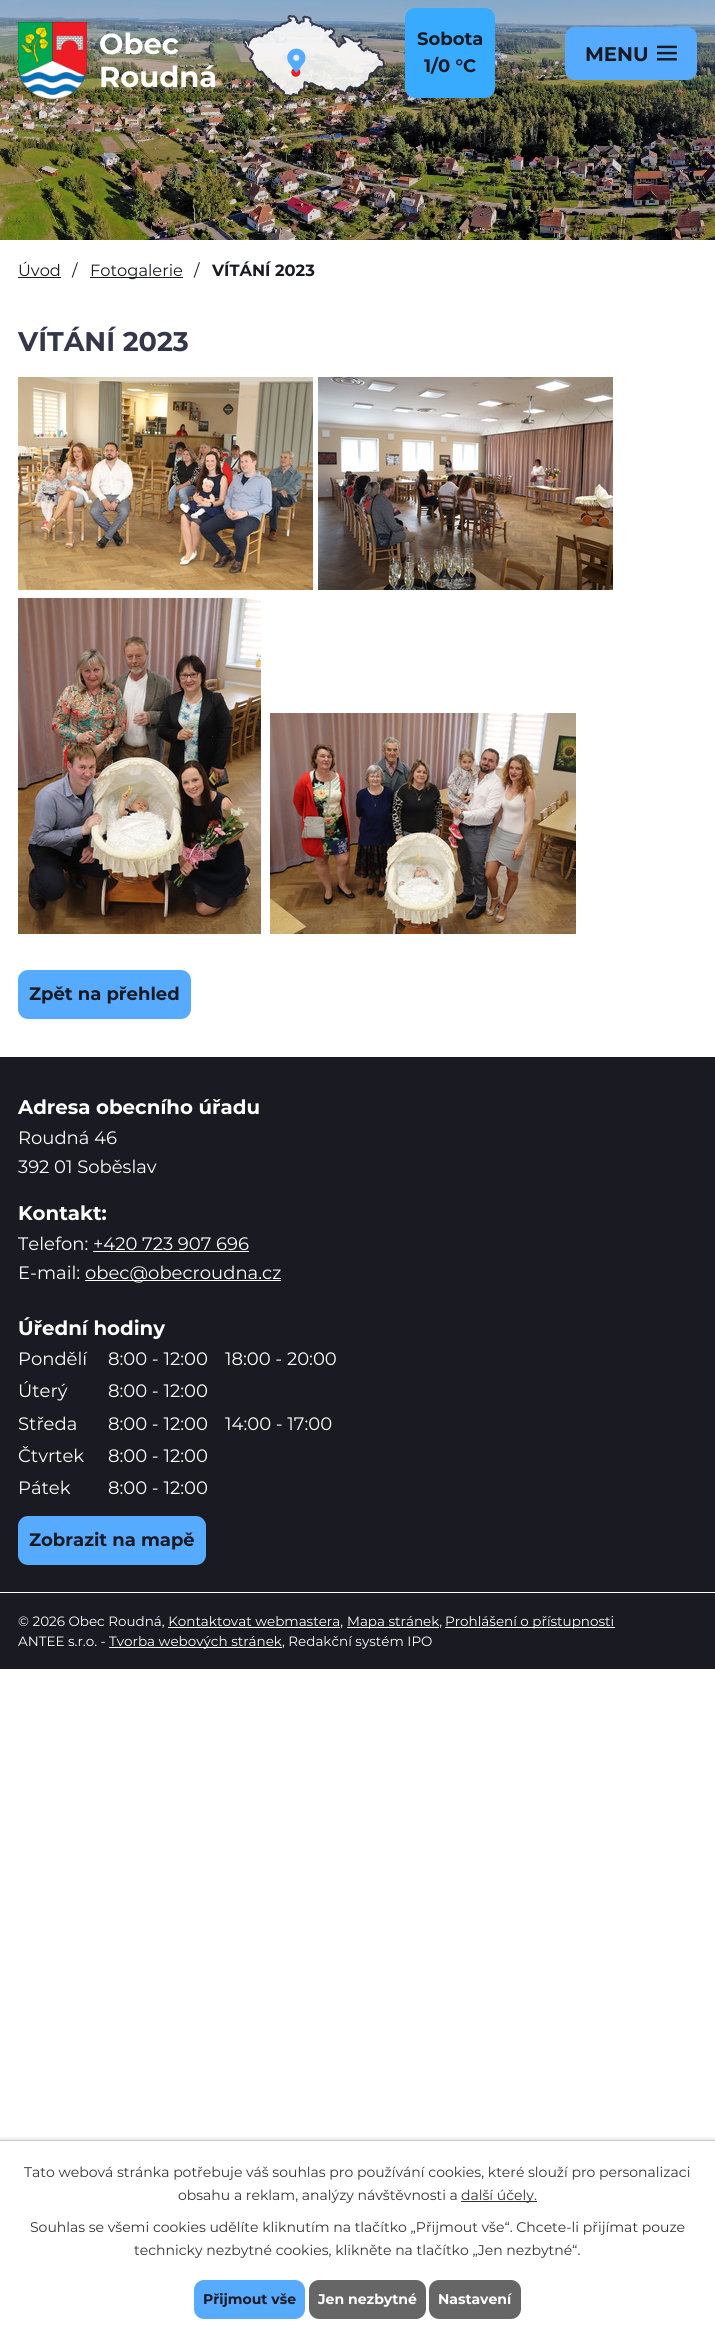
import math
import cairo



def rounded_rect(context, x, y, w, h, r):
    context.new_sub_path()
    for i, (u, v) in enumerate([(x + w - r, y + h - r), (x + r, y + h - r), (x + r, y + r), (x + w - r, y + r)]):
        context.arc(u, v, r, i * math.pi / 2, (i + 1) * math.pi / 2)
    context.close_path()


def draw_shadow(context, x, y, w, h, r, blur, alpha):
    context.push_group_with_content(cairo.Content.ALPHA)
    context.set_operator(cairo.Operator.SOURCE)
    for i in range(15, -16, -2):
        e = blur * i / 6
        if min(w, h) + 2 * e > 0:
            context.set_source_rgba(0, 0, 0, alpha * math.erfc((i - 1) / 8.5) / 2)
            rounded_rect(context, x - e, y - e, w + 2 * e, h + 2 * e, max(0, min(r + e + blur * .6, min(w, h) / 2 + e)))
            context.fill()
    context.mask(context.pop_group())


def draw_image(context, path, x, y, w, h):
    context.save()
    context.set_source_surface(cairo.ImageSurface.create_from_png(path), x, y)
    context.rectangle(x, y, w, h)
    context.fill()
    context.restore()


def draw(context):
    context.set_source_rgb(1, 1, 1)
    context.paint()
    draw_image(context, "images/1.png", 0, 0, 715, 240)
    draw_image(context, "images/2.png", 18, 22, 69, 77)
    draw_image(context, "images/3.png", 243, 15, 142, 82)
    context.set_source_rgb(57 / 255, 171 / 255, 1)
    rounded_rect(context, 405, 8, 90, 90, 10)
    context.fill()
    context.set_source_rgb(87 / 255, 171 / 255, 1)
    rounded_rect(context, 566, 28, 130, 51, 9)
    context.fill_preserve()
    context.stroke()
    draw_image(context, "images/4.png", 657, 45, 20, 16)
    context.set_source_rgb(26 / 255, 26 / 255, 35 / 255)
    context.rectangle(18, 277, 43, 1)
    context.fill()
    context.rectangle(90, 277, 93, 1)
    context.fill()
    draw_image(context, "images/5.png", 18, 377, 295, 213)
    draw_image(context, "images/6.png", 318, 377, 295, 213)
    draw_image(context, "images/7.png", 18, 598, 243, 336)
    draw_image(context, "images/8.png", 270, 713, 306, 221)
    context.set_source_rgb(87 / 255, 171 / 255, 1)
    rounded_rect(context, 19, 971, 171, 47, 9)
    context.fill_preserve()
    context.stroke()
    context.set_source_rgb(26 / 255, 26 / 255, 35 / 255)
    context.rectangle(0, 1057, 715, 612)
    context.fill()
    context.set_source_rgb(1, 1, 1)
    context.rectangle(93, 1251, 156, 1)
    context.fill()
    context.rectangle(85, 1280, 196, 1)
    context.fill()
    context.set_source_rgb(87 / 255, 171 / 255, 1)
    rounded_rect(context, 19, 1517, 186, 47, 9)
    context.fill_preserve()
    context.stroke()
    context.set_source_rgb(1, 1, 1)
    context.rectangle(0, 1592, 715, 1)
    context.fill()
    context.rectangle(347, 1627, 92, 1)
    context.fill()
    context.rectangle(445, 1627, 170, 1)
    context.fill()
    context.rectangle(168, 1627, 172, 1)
    context.fill()
    context.rectangle(109, 1647, 173, 1)
    context.fill()
    context.save()
    context.rectangle(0, 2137, 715, 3)
    context.clip()
    context.set_source_rgb(0, 0, 0)
    draw_shadow(context, 0, 2140, 715, 198, 0, 2.5, 0.2)
    context.restore()
    context.set_source_rgb(204 / 255, 204 / 255, 204 / 255)
    context.rectangle(0, 2140, 715, 1)
    context.fill()
    context.set_source_rgb(51 / 255, 51 / 255, 51 / 255)
    context.rectangle(461, 2201, 76, 1)
    context.fill()
    context.set_source_rgb(87 / 255, 171 / 255, 1)
    rounded_rect(context, 195, 2281, 109, 37, 9)
    context.fill_preserve()
    context.stroke()
    context.set_source_rgb(102 / 255, 102 / 255, 102 / 255)
    rounded_rect(context, 310, 2281, 115, 37, 9)
    context.fill_preserve()
    context.stroke()
    rounded_rect(context, 430, 2281, 90, 37, 9)
    context.fill_preserve()
    context.stroke()
    context.select_font_face("Montserrat", cairo.FontSlant.NORMAL, cairo.FontWeight.BOLD)
    context.set_font_size(29)
    context.set_source_rgb(1, 1, 1)
    context.move_to(99, 54)
    context.show_text("Obec")
    context.move_to(99, 87)
    context.show_text("Roudná")
    context.set_font_size(18)
    context.set_source_rgb(26 / 255, 26 / 255, 35 / 255)
    context.move_to(417, 45)
    context.show_text("Sobota")
    context.move_to(424, 72)
    context.show_text("1/0 °C")
    context.set_font_size(19.75)
    context.move_to(585, 61)
    context.show_text("MENU")
    context.select_font_face("Montserrat")
    context.set_font_size(16.25)
    context.move_to(18, 276)
    context.show_text("Úvod")
    context.move_to(72, 276)
    context.show_text("/")
    context.move_to(90, 276)
    context.show_text("Fotogalerie")
    context.move_to(194, 276)
    context.show_text("/")
    context.select_font_face("Montserrat", cairo.FontSlant.NORMAL, cairo.FontWeight.BOLD)
    context.move_to(212, 276)
    context.show_text("VÍTÁNÍ 2023")
    context.set_font_size(27)
    context.set_source_rgb(52 / 255, 54 / 255, 73 / 255)
    context.move_to(18, 351)
    context.show_text("VÍTÁNÍ 2023")
    context.set_font_size(18)
    context.set_source_rgb(26 / 255, 26 / 255, 35 / 255)
    context.move_to(29, 1000)
    context.show_text("Zpět na přehled")
    context.set_font_size(19.75)
    context.set_source_rgb(1, 1, 1)
    context.move_to(18, 1114)
    context.show_text("Adresa obecního úřadu")
    context.select_font_face("Montserrat")
    context.set_font_size(18)
    context.move_to(18, 1144)
    context.show_text("Roudná 46")
    context.move_to(18, 1173)
    context.show_text("392 01 Soběslav")
    context.select_font_face("Montserrat", cairo.FontSlant.NORMAL, cairo.FontWeight.BOLD)
    context.set_font_size(19.75)
    context.move_to(18, 1220)
    context.show_text("Kontakt:")
    context.select_font_face("Montserrat")
    context.set_font_size(18)
    context.move_to(18, 1250)
    context.show_text("Telefon: +420 723 907 696")
    context.move_to(18, 1279)
    context.show_text("E-mail:")
    context.move_to(85, 1279)
    context.show_text("obec@obecroudna.cz")
    context.select_font_face("Montserrat", cairo.FontSlant.NORMAL, cairo.FontWeight.BOLD)
    context.set_font_size(19.75)
    context.move_to(18, 1335)
    context.show_text("Úřední hodiny")
    context.select_font_face("Montserrat")
    context.set_font_size(18)
    context.move_to(18, 1365)
    context.show_text("Pondělí")
    context.move_to(108, 1365)
    context.show_text("8:00 - 12:00")
    context.move_to(225, 1365)
    context.show_text("18:00 - 20:00")
    context.move_to(18, 1397)
    context.show_text("Úterý")
    context.move_to(108, 1397)
    context.show_text("8:00 - 12:00")
    context.move_to(18, 1430)
    context.show_text("Středa")
    context.move_to(108, 1430)
    context.show_text("8:00 - 12:00")
    context.move_to(225, 1430)
    context.show_text("14:00 - 17:00")
    context.move_to(18, 1462)
    context.show_text("Čtvrtek")
    context.move_to(108, 1462)
    context.show_text("8:00 - 12:00")
    context.move_to(18, 1494)
    context.show_text("Pátek")
    context.move_to(108, 1494)
    context.show_text("8:00 - 12:00")
    context.select_font_face("Montserrat", cairo.FontSlant.NORMAL, cairo.FontWeight.BOLD)
    context.set_source_rgb(26 / 255, 26 / 255, 35 / 255)
    context.move_to(29, 1546)
    context.show_text("Zobrazit na mapě")
    context.select_font_face("Montserrat")
    context.set_font_size(13.5)
    context.set_source_rgb(1, 1, 1)
    context.move_to(18, 1626)
    context.show_text("© 2026 Obec Roudná, Kontaktovat webmastera,")
    context.move_to(347, 1626)
    context.show_text("Mapa stránek,")
    context.move_to(445, 1626)
    context.show_text("Prohlášení o přístupnosti")
    context.move_to(18, 1646)
    context.show_text("ANTEE s.r.o. -")
    context.move_to(109, 1646)
    context.show_text("Tvorba webových stránek, Redakční systém IPO")
    context.set_font_size(14)
    context.set_source_rgb(51 / 255, 51 / 255, 51 / 255)
    context.move_to(24, 2177)
    context.show_text("Tato webová stránka potřebuje váš souhlas pro používání cookies, které slouží pro personalizaci")
    context.move_to(178, 2200)
    context.show_text("obsahu a reklam, analýzy návštěvnosti a")
    context.move_to(461, 2200)
    context.show_text("další účely.")
    context.move_to(30, 2232)
    context.show_text("Souhlas se všemi cookies udělíte kliknutím na tlačítko „Přijmout vše“. Chcete-li přijímat pouze")
    context.move_to(134, 2255)
    context.show_text("technicky nezbytné cookies, klikněte na tlačítko „Jen nezbytné“.")
    context.select_font_face("Montserrat", cairo.FontSlant.NORMAL, cairo.FontWeight.BOLD)
    context.set_source_rgb(26 / 255, 26 / 255, 35 / 255)
    context.move_to(203, 2304)
    context.show_text("Přijmout vše")
    context.set_source_rgb(1, 1, 1)
    context.move_to(318, 2304)
    context.show_text("Jen nezbytné")
    context.move_to(438, 2304)
    context.show_text("Nastavení")


surface = cairo.ImageSurface(cairo.Format.RGB24, 715, 2338)
context = cairo.Context(surface)
options = cairo.FontOptions()
options.set_hint_metrics(cairo.HintMetrics.OFF)
options.set_hint_style(cairo.HintStyle.NONE)
context.set_font_options(options)
context.set_miter_limit(4)
draw(context)
surface.write_to_png("out.png")
